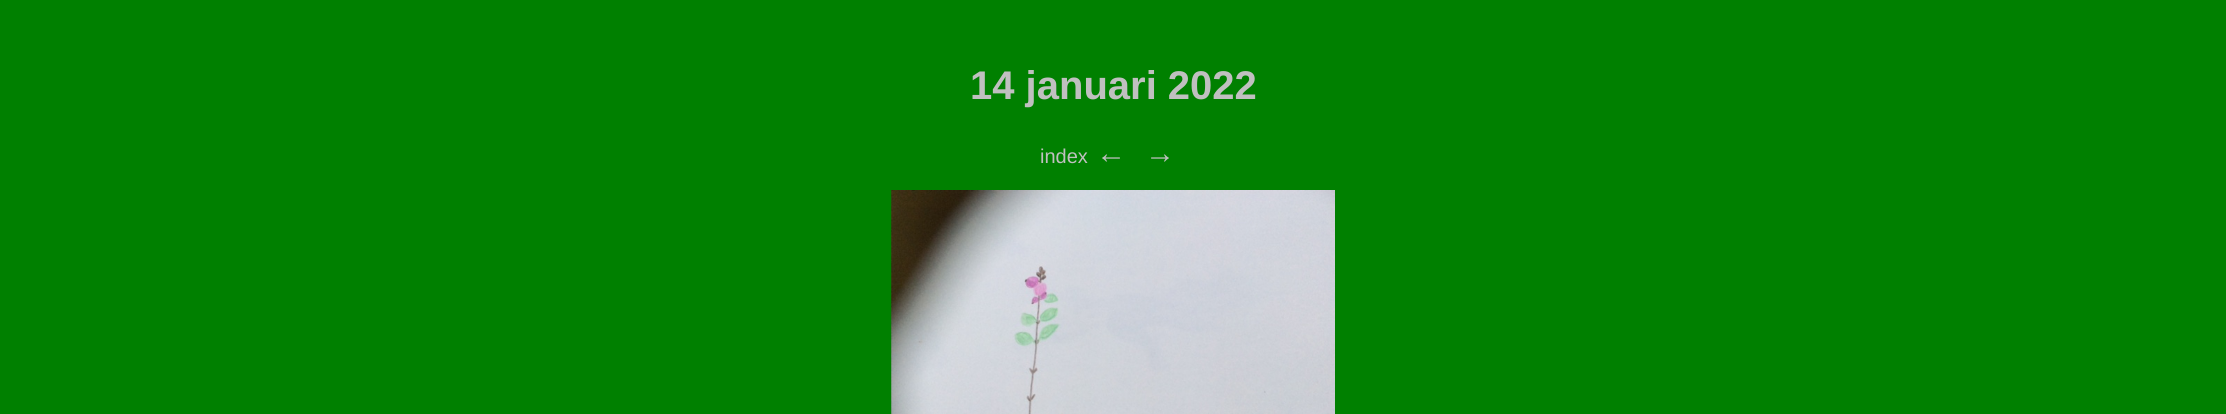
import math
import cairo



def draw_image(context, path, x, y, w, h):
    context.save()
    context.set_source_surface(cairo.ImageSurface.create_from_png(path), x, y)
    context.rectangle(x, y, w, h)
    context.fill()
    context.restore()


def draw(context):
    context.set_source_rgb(0, 128 / 255, 0)
    context.paint()
    draw_image(context, "images/1.png", 891, 190, 444, 224)
    context.select_font_face("Liberation Sans", cairo.FontSlant.NORMAL, cairo.FontWeight.BOLD)
    context.set_font_size(40)
    context.set_source_rgb(192 / 255, 192 / 255, 192 / 255)
    context.move_to(970, 99)
    context.show_text("14 januari 2022")
    context.select_font_face("Liberation Sans")
    context.set_font_size(20)
    context.move_to(1040, 163)
    context.show_text("index")
    context.set_font_size(30)
    context.move_to(1096, 163)
    context.show_text("←")
    context.move_to(1145, 163)
    context.show_text("→")


surface = cairo.ImageSurface(cairo.Format.RGB24, 2226, 414)
context = cairo.Context(surface)
options = cairo.FontOptions()
options.set_hint_metrics(cairo.HintMetrics.OFF)
options.set_hint_style(cairo.HintStyle.NONE)
context.set_font_options(options)
context.set_miter_limit(4)
draw(context)
surface.write_to_png("out.png")
